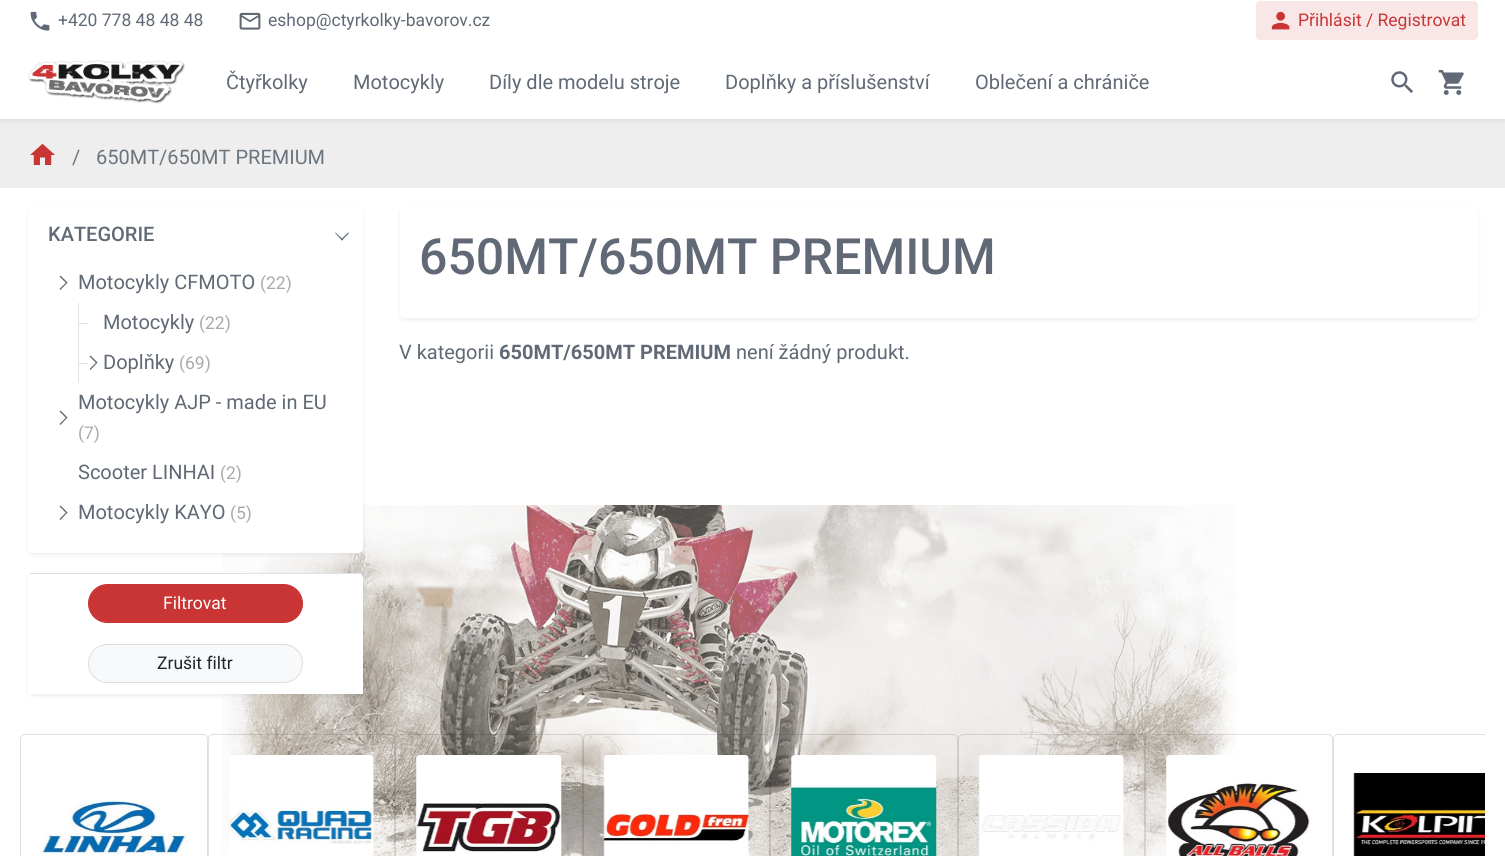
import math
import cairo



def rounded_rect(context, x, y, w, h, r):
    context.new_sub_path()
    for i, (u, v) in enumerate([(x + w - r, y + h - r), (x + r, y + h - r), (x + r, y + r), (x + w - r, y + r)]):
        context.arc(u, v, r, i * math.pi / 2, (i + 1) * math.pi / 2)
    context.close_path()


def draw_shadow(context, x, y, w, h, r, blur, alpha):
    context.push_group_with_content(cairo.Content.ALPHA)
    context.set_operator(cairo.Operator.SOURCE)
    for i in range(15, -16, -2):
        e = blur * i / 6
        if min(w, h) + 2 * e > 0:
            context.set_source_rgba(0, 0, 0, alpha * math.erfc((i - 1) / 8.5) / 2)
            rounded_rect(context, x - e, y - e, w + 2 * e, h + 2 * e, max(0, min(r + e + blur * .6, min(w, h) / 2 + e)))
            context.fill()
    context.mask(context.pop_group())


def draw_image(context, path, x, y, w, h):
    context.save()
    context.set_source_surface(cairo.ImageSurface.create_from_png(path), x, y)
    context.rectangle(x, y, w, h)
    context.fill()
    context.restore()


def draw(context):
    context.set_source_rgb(1, 1, 1)
    context.paint()
    draw_image(context, "images/1.png", 30, 11, 20, 20)
    draw_image(context, "images/2.png", 239, 12, 22, 18)
    context.set_source_rgb(249 / 255, 231 / 255, 231 / 255)
    rounded_rect(context, 1256, 1, 222, 39, 4)
    context.fill()
    draw_image(context, "images/3.png", 1271, 11, 19, 19)
    context.set_source_rgb(238 / 255, 238 / 255, 238 / 255)
    context.rectangle(0, 119, 1505, 69)
    context.fill()
    context.set_source_rgb(0, 0, 0)
    draw_shadow(context, 0, 49, 1505, 72, 0, 2.5, 0.07)
    context.set_source_rgb(1, 1, 1)
    context.rectangle(0, 46, 1505, 73)
    context.fill()
    draw_image(context, "images/4.png", 28, 60, 157, 44)
    draw_image(context, "images/5.png", 1391, 71, 22, 22)
    draw_image(context, "images/6.png", 1438, 70, 26, 25)
    draw_image(context, "images/7.png", 30, 143, 25, 22)
    draw_image(context, "images/8.png", 222, 505, 1015, 351)
    context.set_source_rgb(0, 0, 0)
    draw_shadow(context, 28, 210, 335, 345, 5, 2.5, 0.07)
    context.set_source_rgb(1, 1, 1)
    rounded_rect(context, 28, 208, 335, 345, 5)
    context.fill()
    context.set_source_rgb(96 / 255, 105 / 255, 117 / 255)
    context.new_path()
    context.move_to(341, 239.5)
    context.line_to(348, 232.5)
    context.line_to(349, 233)
    context.line_to(342, 240.5)
    context.close_path()
    context.fill()
    context.new_path()
    context.move_to(335, 233)
    context.line_to(335.5, 232.5)
    context.line_to(343, 239.5)
    context.line_to(342, 240.5)
    context.close_path()
    context.fill()
    context.new_path()
    context.move_to(67.5, 282.5)
    context.line_to(60.5, 290)
    context.line_to(59.5, 289)
    context.line_to(66.5, 282)
    context.close_path()
    context.fill()
    context.new_path()
    context.move_to(67.5, 282.5)
    context.line_to(66.5, 283.5)
    context.line_to(59.5, 276.5)
    context.line_to(60.5, 275.5)
    context.close_path()
    context.fill()
    context.set_source_rgb(222 / 255, 226 / 255, 230 / 255)
    context.rectangle(78, 303, 1, 80)
    context.fill()
    context.rectangle(78, 323, 10, 1)
    context.fill()
    context.rectangle(78, 363, 10, 1)
    context.fill()
    context.set_source_rgb(96 / 255, 105 / 255, 117 / 255)
    context.new_path()
    context.move_to(97.5, 362.5)
    context.line_to(90.5, 370)
    context.line_to(89.5, 369)
    context.line_to(96.5, 362)
    context.close_path()
    context.fill()
    context.new_path()
    context.move_to(97.5, 362.5)
    context.line_to(96.5, 363.5)
    context.line_to(89.5, 356.5)
    context.line_to(90.5, 355.5)
    context.close_path()
    context.fill()
    context.new_path()
    context.move_to(67.5, 417.5)
    context.line_to(60.5, 425)
    context.line_to(59.5, 424)
    context.line_to(66.5, 417)
    context.close_path()
    context.fill()
    context.new_path()
    context.move_to(67.5, 417.5)
    context.line_to(66.5, 418.5)
    context.line_to(59.5, 411.5)
    context.line_to(60.5, 410.5)
    context.close_path()
    context.fill()
    context.new_path()
    context.move_to(67.5, 512.5)
    context.line_to(60.5, 520)
    context.line_to(59.5, 519)
    context.line_to(66.5, 512)
    context.close_path()
    context.fill()
    context.new_path()
    context.move_to(67.5, 512.5)
    context.line_to(66.5, 513.5)
    context.line_to(59.5, 506.5)
    context.line_to(60.5, 505.5)
    context.close_path()
    context.fill()
    context.set_source_rgb(0, 0, 0)
    draw_shadow(context, 28, 575, 335, 121, 5, 2.5, 0.07)
    context.set_source_rgb(1, 1, 1)
    rounded_rect(context, 28, 573, 335, 121, 5)
    context.fill()
    context.set_source_rgb(222 / 255, 226 / 255, 230 / 255)
    context.rectangle(30, 573, 330, 1)
    context.fill()
    context.set_source_rgb(1, 1, 1)
    context.new_path()
    context.move_to(32, 574)
    context.line_to(359, 574)
    context.curve_to(361, 574, 363, 576, 363, 578)
    context.line_to(363, 634)
    context.line_to(28, 634)
    context.line_to(28, 578)
    context.curve_to(28, 576, 30, 574, 32, 574)
    context.close_path()
    context.fill()
    context.set_source_rgb(201 / 255, 53 / 255, 53 / 255)
    rounded_rect(context, 88.5, 584.5, 214, 38, 19)
    context.fill_preserve()
    context.set_line_width(1)
    context.stroke()
    context.set_source_rgb(1, 1, 1)
    context.rectangle(28, 689, 335, 5)
    context.fill()
    context.set_source_rgb(248 / 255, 249 / 255, 250 / 255)
    rounded_rect(context, 88.5, 644.5, 214, 38, 19)
    context.fill_preserve()
    context.set_source_rgb(221 / 255, 221 / 255, 221 / 255)
    context.stroke()
    context.set_source_rgb(0, 0, 0)
    draw_shadow(context, 400, 210, 1078, 110, 5, 2.5, 0.07)
    context.set_source_rgb(1, 1, 1)
    rounded_rect(context, 400, 208, 1078, 110, 5)
    context.fill()
    rounded_rect(context, 20.5, 734.5, 187, 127, 4.5)
    context.set_source_rgb(223 / 255, 223 / 255, 223 / 255)
    context.stroke()
    draw_image(context, "images/9.png", 41, 800, 145, 56)
    rounded_rect(context, 208.5, 734.5, 186, 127, 4.5)
    context.set_source_rgba(0, 0, 0, 0.12)
    context.stroke()
    draw_image(context, "images/10.png", 228, 755, 147, 101)
    rounded_rect(context, 395.5, 734.5, 187, 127, 4.5)
    context.stroke()
    draw_image(context, "images/11.png", 416, 755, 146, 101)
    rounded_rect(context, 583.5, 734.5, 186, 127, 4.5)
    context.stroke()
    draw_image(context, "images/12.png", 603, 755, 147, 101)
    rounded_rect(context, 770.5, 734.5, 187, 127, 4.5)
    context.stroke()
    draw_image(context, "images/13.png", 791, 755, 146, 101)
    rounded_rect(context, 958.5, 734.5, 186, 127, 4.5)
    context.stroke()
    draw_image(context, "images/14.png", 978, 755, 147, 101)
    rounded_rect(context, 1145.5, 734.5, 187, 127, 4.5)
    context.stroke()
    draw_image(context, "images/15.png", 1166, 755, 144, 101)
    context.save()
    context.rectangle(20, 734, 1465, 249)
    context.clip()
    rounded_rect(context, 1333.5, 734.5, 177, 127, 4.5)
    context.set_source_rgb(223 / 255, 223 / 255, 223 / 255)
    context.stroke()
    context.restore()
    draw_image(context, "images/16.png", 1353, 773, 132, 83)
    context.select_font_face("Roboto")
    context.set_font_size(17.5)
    context.set_source_rgb(96 / 255, 105 / 255, 117 / 255)
    context.move_to(58, 26)
    context.show_text("+420 778 48 48 48")
    context.move_to(268, 26)
    context.show_text("eshop@ctyrkolky-bavorov.cz")
    context.set_source_rgb(201 / 255, 53 / 255, 53 / 255)
    context.move_to(1298, 26)
    context.show_text("Přihlásit / Registrovat")
    context.set_font_size(20)
    context.set_source_rgb(96 / 255, 105 / 255, 117 / 255)
    context.move_to(226, 89)
    context.show_text("Čtyřkolky")
    context.move_to(353, 89)
    context.show_text("Motocykly")
    context.move_to(489, 89)
    context.show_text("Díly dle modelu stroje")
    context.move_to(725, 89)
    context.show_text("Doplňky a příslušenství")
    context.move_to(975, 89)
    context.show_text("Oblečení a chrániče")
    context.set_source_rgb(108 / 255, 117 / 255, 125 / 255)
    context.move_to(72, 164)
    context.show_text("/")
    context.move_to(96, 164)
    context.show_text("650MT/650MT PREMIUM")
    context.select_font_face("Roboto Medium")
    context.set_source_rgb(96 / 255, 105 / 255, 117 / 255)
    context.move_to(48, 241)
    context.show_text("KATEGORIE")
    context.select_font_face("Roboto")
    context.move_to(78, 289)
    context.show_text("Motocykly CFMOTO")
    context.set_font_size(17.5)
    context.set_source_rgb(170 / 255, 170 / 255, 170 / 255)
    context.move_to(260, 289)
    context.show_text("(22)")
    context.set_font_size(20)
    context.set_source_rgb(96 / 255, 105 / 255, 117 / 255)
    context.move_to(103, 329)
    context.show_text("Motocykly")
    context.set_font_size(17.5)
    context.set_source_rgb(170 / 255, 170 / 255, 170 / 255)
    context.move_to(199, 329)
    context.show_text("(22)")
    context.set_font_size(20)
    context.set_source_rgb(96 / 255, 105 / 255, 117 / 255)
    context.move_to(103, 369)
    context.show_text("Doplňky")
    context.set_font_size(17.5)
    context.set_source_rgb(170 / 255, 170 / 255, 170 / 255)
    context.move_to(179, 369)
    context.show_text("(69)")
    context.set_font_size(20)
    context.set_source_rgb(96 / 255, 105 / 255, 117 / 255)
    context.move_to(78, 409)
    context.show_text("Motocykly AJP - made in EU")
    context.set_font_size(17.5)
    context.set_source_rgb(170 / 255, 170 / 255, 170 / 255)
    context.move_to(78, 439)
    context.show_text("(7)")
    context.set_font_size(20)
    context.set_source_rgb(96 / 255, 105 / 255, 117 / 255)
    context.move_to(78, 479)
    context.show_text("Scooter LINHAI")
    context.set_font_size(17.5)
    context.set_source_rgb(170 / 255, 170 / 255, 170 / 255)
    context.move_to(220, 479)
    context.show_text("(2)")
    context.set_font_size(20)
    context.set_source_rgb(96 / 255, 105 / 255, 117 / 255)
    context.move_to(78, 519)
    context.show_text("Motocykly KAYO")
    context.set_font_size(17.5)
    context.set_source_rgb(170 / 255, 170 / 255, 170 / 255)
    context.move_to(230, 519)
    context.show_text("(5)")
    context.set_source_rgb(1, 1, 1)
    context.move_to(163, 609)
    context.show_text("Filtrovat")
    context.set_source_rgb(33 / 255, 37 / 255, 41 / 255)
    context.move_to(157, 669)
    context.show_text("Zrušit filtr")
    context.select_font_face("Roboto Medium")
    context.set_font_size(50)
    context.set_source_rgb(96 / 255, 105 / 255, 117 / 255)
    context.move_to(419, 274)
    context.show_text("650MT/650MT PREMIUM")
    context.select_font_face("Roboto")
    context.set_font_size(20)
    context.move_to(399, 359)
    context.show_text("V kategorii")
    context.select_font_face("Roboto", cairo.FontSlant.NORMAL, cairo.FontWeight.BOLD)
    context.move_to(499, 359)
    context.show_text("650MT/650MT PREMIUM")
    context.select_font_face("Roboto")
    context.move_to(736, 359)
    context.show_text("není žádný produkt.")


surface = cairo.ImageSurface(cairo.Format.RGB24, 1505, 856)
context = cairo.Context(surface)
options = cairo.FontOptions()
options.set_hint_metrics(cairo.HintMetrics.OFF)
options.set_hint_style(cairo.HintStyle.NONE)
context.set_font_options(options)
context.set_miter_limit(4)
draw(context)
surface.write_to_png("out.png")
